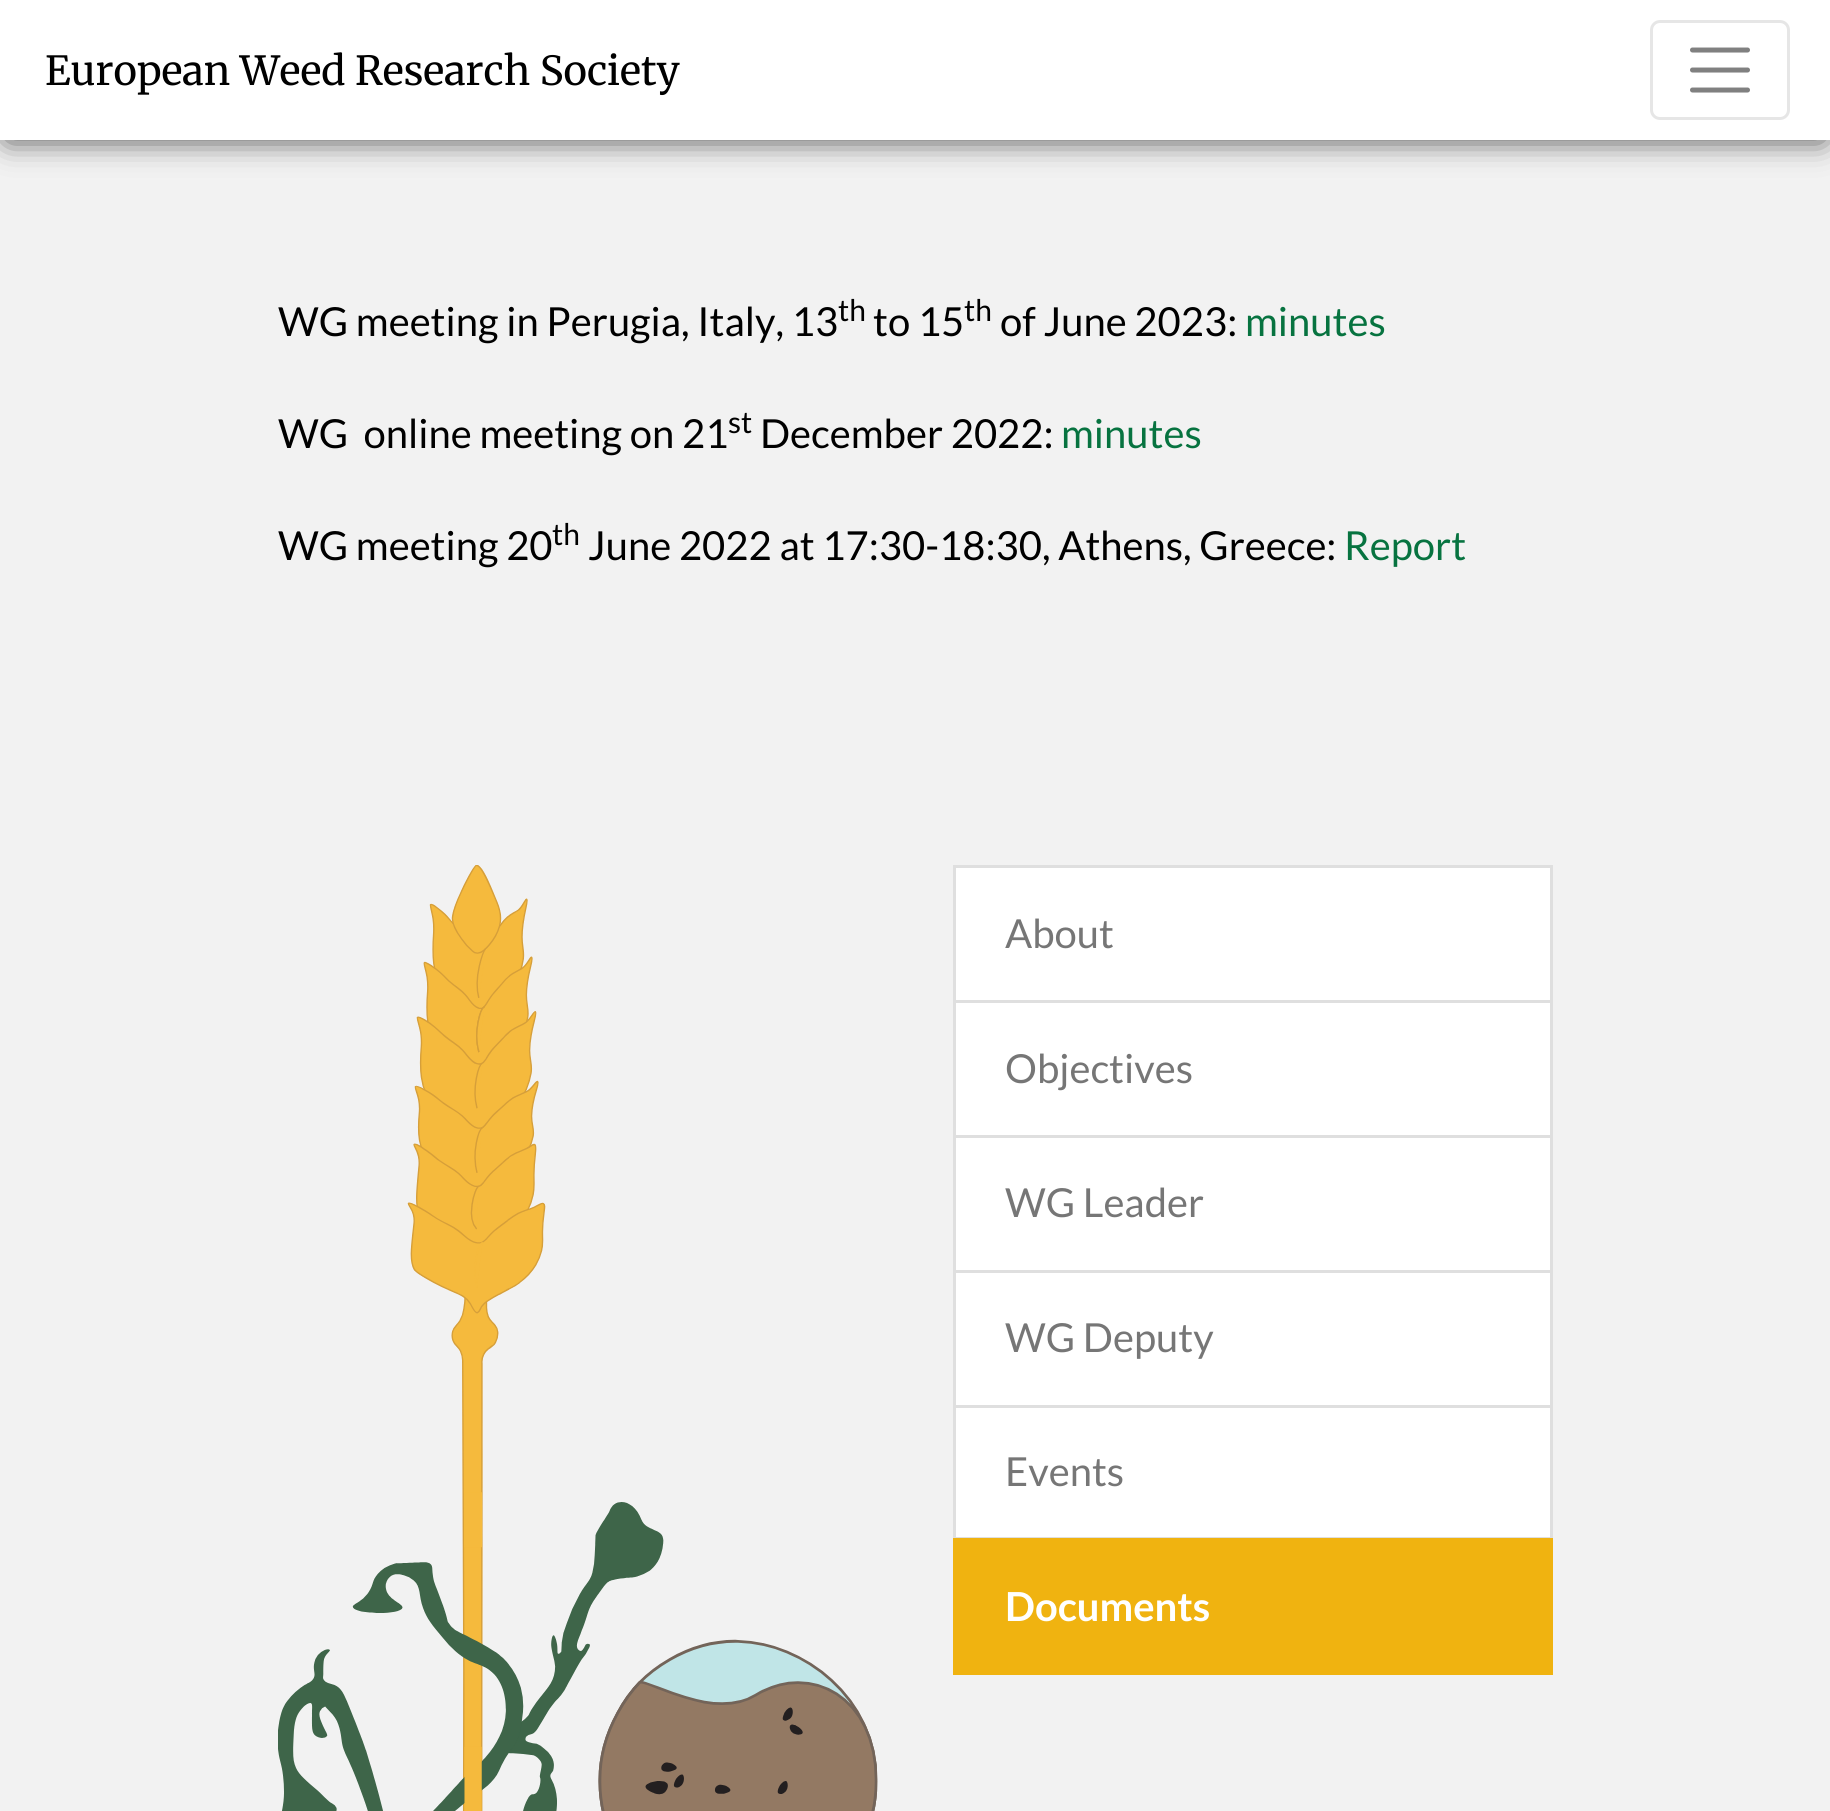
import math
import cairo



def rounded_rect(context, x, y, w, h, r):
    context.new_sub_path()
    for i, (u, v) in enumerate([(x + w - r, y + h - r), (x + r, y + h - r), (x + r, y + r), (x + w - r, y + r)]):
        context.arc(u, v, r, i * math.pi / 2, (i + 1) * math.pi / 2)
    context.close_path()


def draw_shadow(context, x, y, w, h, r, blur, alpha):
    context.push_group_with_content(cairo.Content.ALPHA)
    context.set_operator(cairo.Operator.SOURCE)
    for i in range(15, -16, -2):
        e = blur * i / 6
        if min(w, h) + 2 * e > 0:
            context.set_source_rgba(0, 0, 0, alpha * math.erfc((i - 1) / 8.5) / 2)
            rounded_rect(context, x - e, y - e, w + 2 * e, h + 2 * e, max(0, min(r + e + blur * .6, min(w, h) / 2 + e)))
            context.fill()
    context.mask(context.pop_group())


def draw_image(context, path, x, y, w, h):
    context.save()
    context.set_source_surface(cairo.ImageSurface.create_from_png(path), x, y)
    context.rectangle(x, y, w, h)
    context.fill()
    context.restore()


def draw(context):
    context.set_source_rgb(242 / 255, 242 / 255, 242 / 255)
    context.paint()
    context.set_source_rgb(51 / 255, 51 / 255, 51 / 255)
    draw_shadow(context, 8, 13, 1815, 125, 0, 16, 1)
    context.set_source_rgb(1, 1, 1)
    context.rectangle(0, 0, 1830, 140)
    context.fill()
    rounded_rect(context, 1651.5, 21.5, 137, 97, 8.5)
    context.set_source_rgb(230 / 255, 230 / 255, 230 / 255)
    context.set_line_width(3)
    context.stroke()
    context.new_path()
    context.move_to(1692.5, 50)
    context.line_to(1747.5, 50)
    context.move_to(1692.5, 70)
    context.line_to(1747.5, 70)
    context.move_to(1692.5, 90)
    context.line_to(1747.5, 90)
    context.set_source_rgb(128 / 255, 128 / 255, 128 / 255)
    context.set_line_width(5)
    context.set_line_cap(cairo.LineCap.ROUND)
    context.stroke()
    draw_image(context, "images/1.png", 278, 865, 600, 946)
    context.set_source_rgb(1, 1, 1)
    context.rectangle(954.5, 866.5, 597, 135)
    context.fill_preserve()
    context.set_source_rgb(223 / 255, 223 / 255, 223 / 255)
    context.set_line_width(3)
    context.set_line_cap(cairo.LineCap.BUTT)
    context.stroke()
    context.set_source_rgb(1, 1, 1)
    context.rectangle(954.5, 1001.5, 597, 135)
    context.fill_preserve()
    context.set_source_rgb(223 / 255, 223 / 255, 223 / 255)
    context.stroke()
    context.set_source_rgb(1, 1, 1)
    context.rectangle(954.5, 1136.5, 597, 135)
    context.fill_preserve()
    context.set_source_rgb(223 / 255, 223 / 255, 223 / 255)
    context.stroke()
    context.set_source_rgb(1, 1, 1)
    context.rectangle(954.5, 1271.5, 597, 135)
    context.fill_preserve()
    context.set_source_rgb(223 / 255, 223 / 255, 223 / 255)
    context.stroke()
    context.set_source_rgb(1, 1, 1)
    context.rectangle(954.5, 1406.5, 597, 132)
    context.fill_preserve()
    context.set_source_rgb(223 / 255, 223 / 255, 223 / 255)
    context.stroke()
    context.set_source_rgb(240 / 255, 179 / 255, 16 / 255)
    context.rectangle(953, 1538, 600, 137)
    context.fill()
    context.select_font_face("Merriweather Light")
    context.set_font_size(40)
    context.set_source_rgb(0, 0, 0)
    context.move_to(45, 85)
    context.show_text("European Weed Research Society")
    context.select_font_face("Lato")
    context.move_to(278, 336)
    context.show_text("WG meeting in Perugia, Italy, 13")
    context.set_font_size(30)
    context.move_to(838, 321)
    context.show_text("th")
    context.set_font_size(40)
    context.move_to(873, 336)
    context.show_text("to 15")
    context.set_font_size(30)
    context.move_to(964, 321)
    context.show_text("th")
    context.set_font_size(40)
    context.move_to(1000, 336)
    context.show_text("of June 2023:")
    context.set_source_rgb(7 / 255, 115 / 255, 64 / 255)
    context.move_to(1245, 336)
    context.show_text("minutes")
    context.set_source_rgb(0, 0, 0)
    context.move_to(278, 448)
    context.show_text("WG  online meeting on 21")
    context.set_font_size(30)
    context.move_to(728, 433)
    context.show_text("st")
    context.set_font_size(40)
    context.move_to(760, 448)
    context.show_text("December 2022:")
    context.set_source_rgb(7 / 255, 115 / 255, 64 / 255)
    context.move_to(1061, 448)
    context.show_text("minutes")
    context.set_source_rgb(0, 0, 0)
    context.move_to(278, 560)
    context.show_text("WG meeting 20")
    context.set_font_size(30)
    context.move_to(552, 545)
    context.show_text("th")
    context.set_font_size(40)
    context.move_to(588, 560)
    context.show_text("June 2022 at 17:30-18:30, Athens, Greece:")
    context.set_source_rgb(7 / 255, 115 / 255, 64 / 255)
    context.move_to(1344, 560)
    context.show_text("Report")
    context.set_source_rgb(118 / 255, 118 / 255, 118 / 255)
    context.move_to(1005, 948)
    context.show_text("About")
    context.move_to(1005, 1083)
    context.show_text("Objectives")
    context.move_to(1005, 1217)
    context.show_text("WG Leader")
    context.move_to(1005, 1352)
    context.show_text("WG Deputy")
    context.move_to(1005, 1486)
    context.show_text("Events")
    context.select_font_face("Lato", cairo.FontSlant.NORMAL, cairo.FontWeight.BOLD)
    context.set_source_rgb(1, 1, 1)
    context.move_to(1005, 1621)
    context.show_text("Documents")


surface = cairo.ImageSurface(cairo.Format.RGB24, 1830, 1811)
context = cairo.Context(surface)
options = cairo.FontOptions()
options.set_hint_metrics(cairo.HintMetrics.OFF)
options.set_hint_style(cairo.HintStyle.NONE)
context.set_font_options(options)
context.set_miter_limit(4)
draw(context)
surface.write_to_png("out.png")
